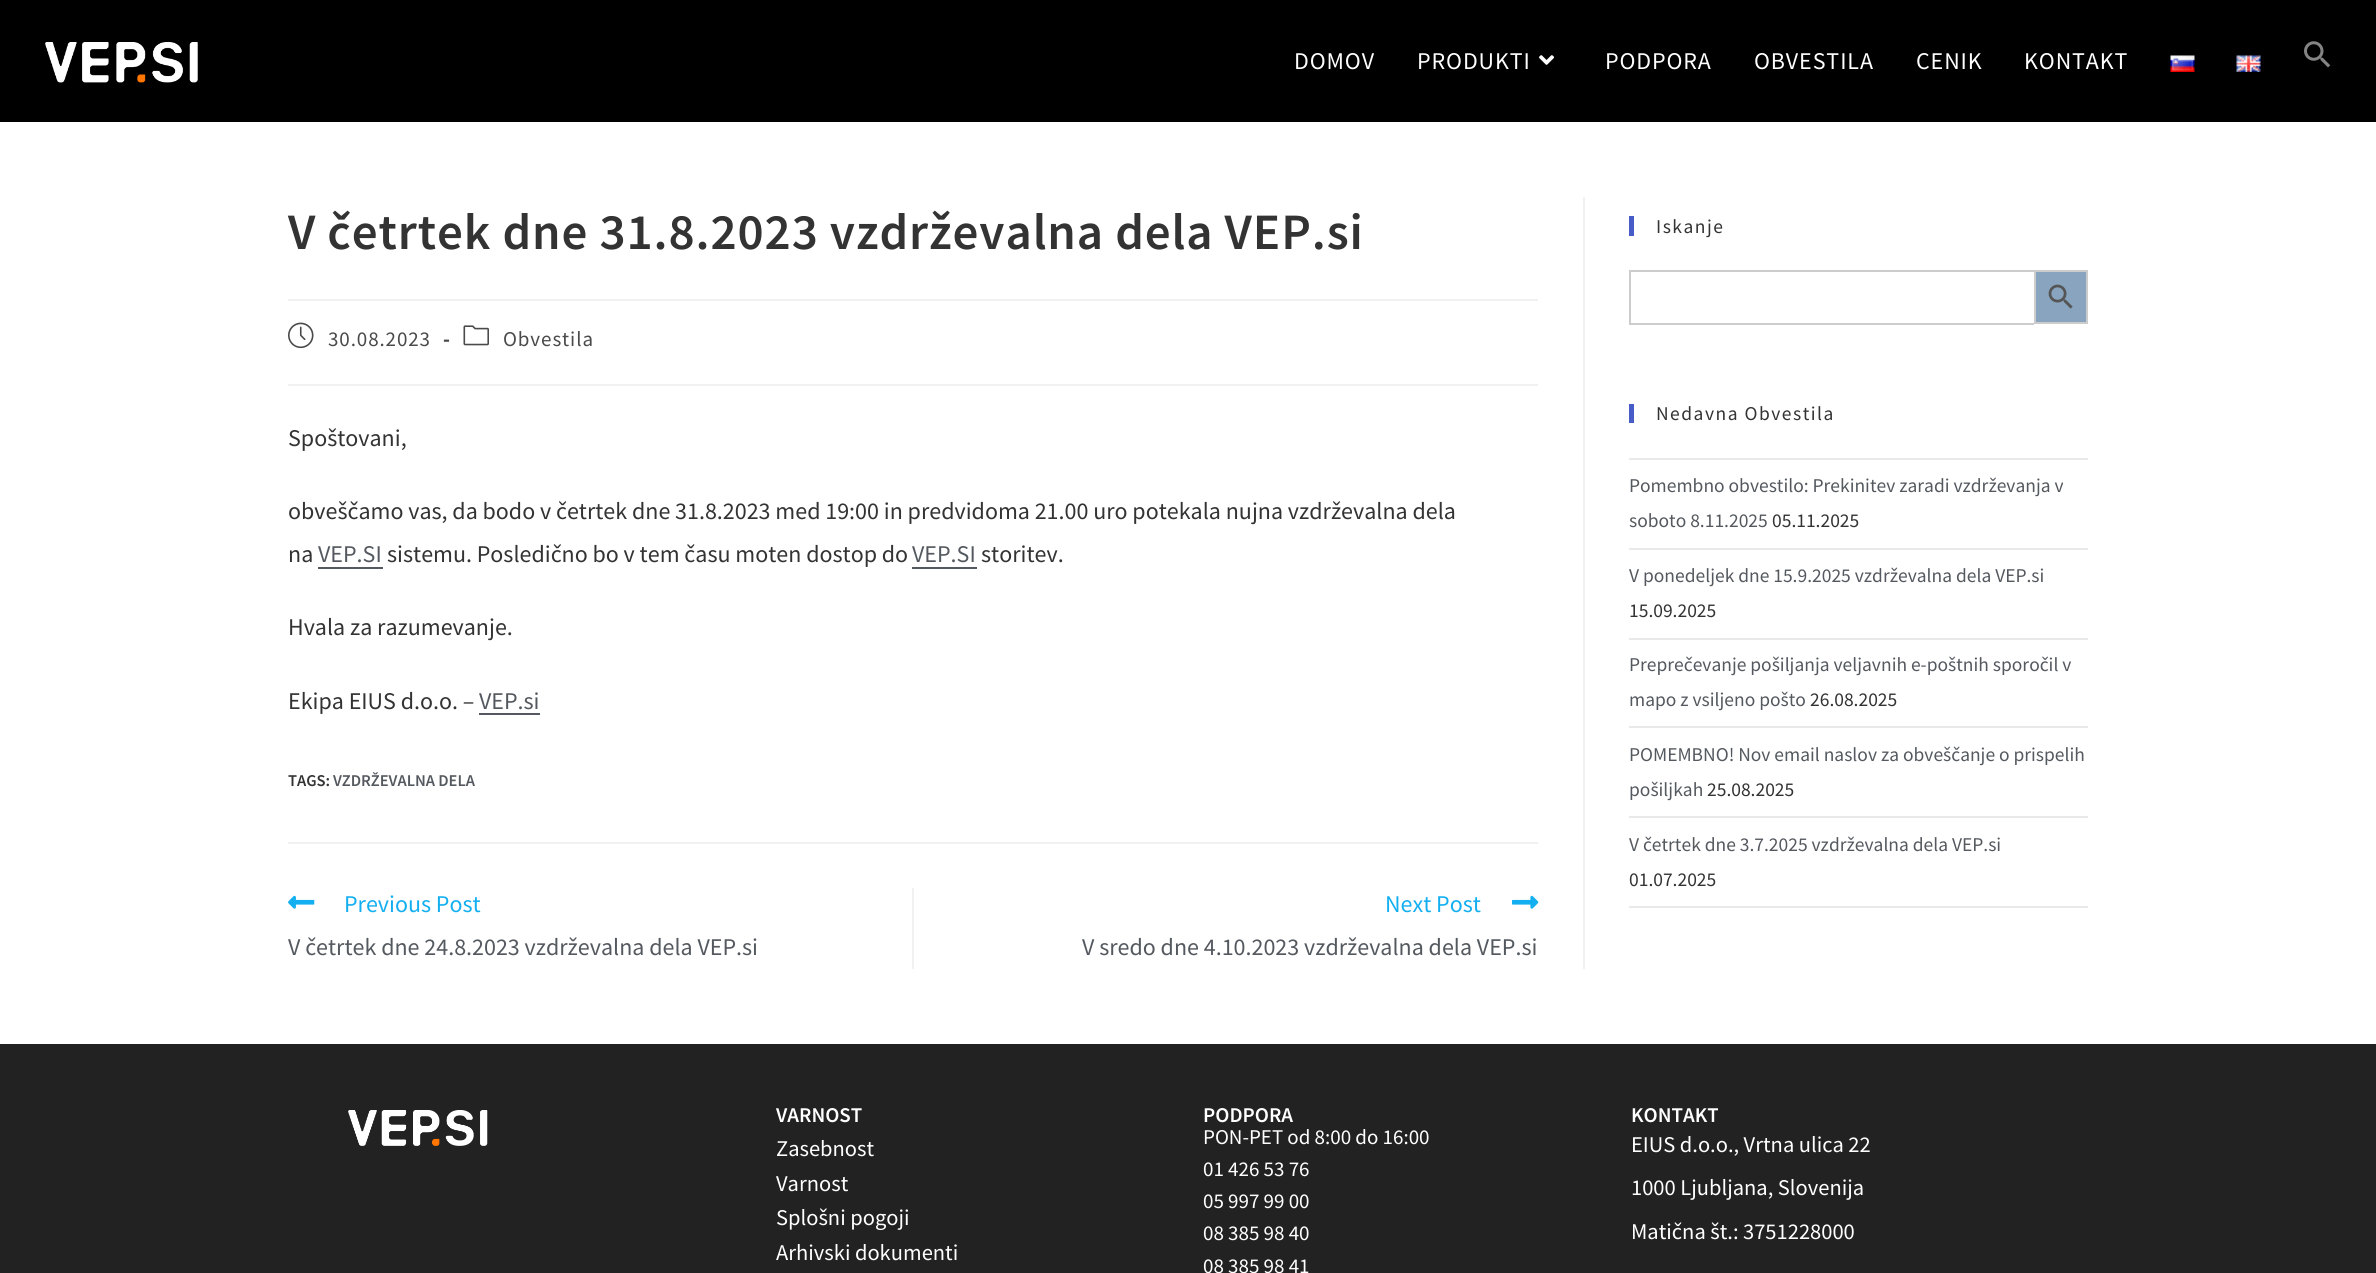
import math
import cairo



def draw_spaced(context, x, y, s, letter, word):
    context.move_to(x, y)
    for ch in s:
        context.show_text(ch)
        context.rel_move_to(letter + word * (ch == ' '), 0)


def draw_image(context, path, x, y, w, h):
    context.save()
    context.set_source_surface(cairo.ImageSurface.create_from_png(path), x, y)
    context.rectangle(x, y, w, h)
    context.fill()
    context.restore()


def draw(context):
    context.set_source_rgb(1, 1, 1)
    context.paint()
    context.set_source_rgb(0, 0, 0)
    context.rectangle(0, 0, 2376, 122)
    context.fill()
    draw_image(context, "images/1.png", 45, 42, 153, 41)
    draw_image(context, "images/2.png", 1539, 55, 15, 10)
    draw_image(context, "images/3.png", 2170, 55, 25, 17)
    draw_image(context, "images/4.png", 2236, 55, 25, 17)
    draw_image(context, "images/5.png", 2304, 41, 27, 27)
    context.set_source_rgb(241 / 255, 241 / 255, 241 / 255)
    context.rectangle(1583, 197, 2, 772)
    context.fill()
    context.rectangle(288, 299, 1250, 2)
    context.fill()
    context.rectangle(288, 384, 1250, 2)
    context.fill()
    draw_image(context, "images/6.png", 288, 322, 26, 27)
    draw_image(context, "images/7.png", 463, 325, 26, 21)
    context.set_source_rgb(84 / 255, 89 / 255, 95 / 255)
    context.rectangle(318, 567, 65, 2)
    context.fill()
    context.rectangle(912, 567, 65, 2)
    context.fill()
    context.rectangle(479, 713, 61, 2)
    context.fill()
    context.set_source_rgb(241 / 255, 241 / 255, 241 / 255)
    context.rectangle(288, 842, 1250, 2)
    context.fill()
    context.rectangle(912, 888, 2, 81)
    context.fill()
    draw_image(context, "images/8.png", 288, 895, 27, 14)
    draw_image(context, "images/9.png", 1512, 895, 27, 14)
    context.set_source_rgb(72 / 255, 92 / 255, 199 / 255)
    context.rectangle(1629, 216, 5, 20)
    context.fill()
    context.set_source_rgb(204 / 255, 204 / 255, 204 / 255)
    context.rectangle(1629, 270, 405, 2)
    context.fill()
    context.rectangle(1629, 323, 405, 2)
    context.fill()
    context.rectangle(1629, 270, 2, 54)
    context.fill()
    context.set_source_rgb(137 / 255, 164 / 255, 191 / 255)
    context.rectangle(2035, 271, 52, 52)
    context.fill_preserve()
    context.set_source_rgb(204 / 255, 204 / 255, 204 / 255)
    context.stroke()
    draw_image(context, "images/10.png", 2048, 284, 25, 25)
    context.set_source_rgb(72 / 255, 92 / 255, 199 / 255)
    context.rectangle(1629, 404, 5, 19)
    context.fill()
    context.set_source_rgb(233 / 255, 233 / 255, 233 / 255)
    context.rectangle(1629, 458, 459, 2)
    context.fill()
    context.rectangle(1629, 548, 459, 2)
    context.fill()
    context.rectangle(1629, 638, 459, 2)
    context.fill()
    context.rectangle(1629, 726, 459, 2)
    context.fill()
    context.rectangle(1629, 816, 459, 2)
    context.fill()
    context.rectangle(1629, 906, 459, 2)
    context.fill()
    context.set_source_rgb(34 / 255, 34 / 255, 34 / 255)
    context.rectangle(0, 1044, 2376, 229)
    context.fill()
    draw_image(context, "images/11.png", 348, 1110, 140, 36)
    context.select_font_face("Source Sans Pro")
    context.set_font_size(24)
    context.set_source_rgb(1, 1, 1)
    draw_spaced(context, 1294, 69, "DOMOV", 0.9, 0)
    draw_spaced(context, 1417, 69, "PRODUKTI", 0.9, 0)
    draw_spaced(context, 1605, 69, "PODPORA", 0.9, 0)
    draw_spaced(context, 1754, 69, "OBVESTILA", 0.9, 0)
    draw_spaced(context, 1916, 69, "CENIK", 0.9, 0)
    draw_spaced(context, 2024, 69, "KONTAKT", 0.9, 0)
    context.select_font_face("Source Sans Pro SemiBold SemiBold")
    context.set_font_size(51)
    context.set_source_rgb(51 / 255, 51 / 255, 51 / 255)
    draw_spaced(context, 288, 249, "V četrtek dne 31.8.2023 vzdrževalna dela VEP.si", 0.9, 0)
    context.select_font_face("Source Sans Pro")
    context.set_font_size(21)
    context.set_source_rgb(74 / 255, 74 / 255, 74 / 255)
    draw_spaced(context, 328, 346, "30.08.2023", 0.9, 0)
    context.select_font_face("Source Sans Pro", cairo.FontSlant.NORMAL, cairo.FontWeight.BOLD)
    draw_spaced(context, 443, 346, "-", 0.9, 0)
    context.select_font_face("Source Sans Pro")
    draw_spaced(context, 503, 346, "Obvestila", 0.9, 0)
    context.set_font_size(24)
    context.set_source_rgb(51 / 255, 51 / 255, 51 / 255)
    context.move_to(288, 446)
    context.show_text("Spoštovani,")
    context.move_to(288, 519)
    context.show_text("obveščamo vas, da bodo v četrtek dne 31.8.2023 med 19:00 in predvidoma 21.00 uro potekala nujna vzdrževalna dela")
    context.move_to(288, 562)
    context.show_text("na")
    context.set_source_rgb(84 / 255, 89 / 255, 95 / 255)
    context.move_to(318, 562)
    context.show_text("VEP.SI")
    context.set_source_rgb(51 / 255, 51 / 255, 51 / 255)
    context.move_to(387, 562)
    context.show_text("sistemu. Posledično bo v tem času moten dostop do")
    context.set_source_rgb(84 / 255, 89 / 255, 95 / 255)
    context.move_to(912, 562)
    context.show_text("VEP.SI")
    context.set_source_rgb(51 / 255, 51 / 255, 51 / 255)
    context.move_to(981, 562)
    context.show_text("storitev.")
    context.move_to(288, 635)
    context.show_text("Hvala za razumevanje.")
    context.move_to(288, 709)
    context.show_text("Ekipa EIUS d.o.o. –")
    context.set_source_rgb(84 / 255, 89 / 255, 95 / 255)
    context.move_to(479, 709)
    context.show_text("VEP.si")
    context.select_font_face("Source Sans Pro SemiBold SemiBold")
    context.set_font_size(16.5)
    context.set_source_rgb(51 / 255, 51 / 255, 51 / 255)
    context.move_to(288, 786)
    context.show_text("TAGS:")
    context.set_source_rgb(84 / 255, 89 / 255, 95 / 255)
    context.move_to(333, 786)
    context.show_text("VZDRŽEVALNA DELA")
    context.select_font_face("Source Sans Pro")
    context.set_font_size(24)
    context.set_source_rgb(19 / 255, 175 / 255, 240 / 255)
    context.move_to(344, 912)
    context.show_text("Previous Post")
    context.set_source_rgb(84 / 255, 89 / 255, 95 / 255)
    context.move_to(288, 955)
    context.show_text("V četrtek dne 24.8.2023 vzdrževalna dela VEP.si")
    context.set_source_rgb(19 / 255, 175 / 255, 240 / 255)
    context.move_to(1385, 912)
    context.show_text("Next Post")
    context.set_source_rgb(84 / 255, 89 / 255, 95 / 255)
    context.move_to(1082, 955)
    context.show_text("V sredo dne 4.10.2023 vzdrževalna dela VEP.si")
    context.set_font_size(19.5)
    context.set_source_rgb(51 / 255, 51 / 255, 51 / 255)
    draw_spaced(context, 1656, 233, "Iskanje", 1.5, 0)
    draw_spaced(context, 1656, 420, "Nedavna Obvestila", 1.5, 0)
    context.set_source_rgb(84 / 255, 89 / 255, 95 / 255)
    context.move_to(1629, 492)
    context.show_text("Pomembno obvestilo: Prekinitev zaradi vzdrževanja v")
    context.move_to(1629, 527)
    context.show_text("soboto 8.11.2025")
    context.set_source_rgb(51 / 255, 51 / 255, 51 / 255)
    context.move_to(1772, 527)
    context.show_text("05.11.2025")
    context.set_source_rgb(84 / 255, 89 / 255, 95 / 255)
    context.move_to(1629, 582)
    context.show_text("V ponedeljek dne 15.9.2025 vzdrževalna dela VEP.si")
    context.set_source_rgb(51 / 255, 51 / 255, 51 / 255)
    context.move_to(1629, 617)
    context.show_text("15.09.2025")
    context.set_source_rgb(84 / 255, 89 / 255, 95 / 255)
    context.move_to(1629, 671)
    context.show_text("Preprečevanje pošiljanja veljavnih e-poštnih sporočil v")
    context.move_to(1629, 706)
    context.show_text("mapo z vsiljeno pošto")
    context.set_source_rgb(51 / 255, 51 / 255, 51 / 255)
    context.move_to(1810, 706)
    context.show_text("26.08.2025")
    context.set_source_rgb(84 / 255, 89 / 255, 95 / 255)
    context.move_to(1629, 761)
    context.show_text("POMEMBNO! Nov email naslov za obveščanje o prispelih")
    context.move_to(1629, 796)
    context.show_text("pošiljkah")
    context.set_source_rgb(51 / 255, 51 / 255, 51 / 255)
    context.move_to(1707, 796)
    context.show_text("25.08.2025")
    context.set_source_rgb(84 / 255, 89 / 255, 95 / 255)
    context.move_to(1629, 851)
    context.show_text("V četrtek dne 3.7.2025 vzdrževalna dela VEP.si")
    context.set_source_rgb(51 / 255, 51 / 255, 51 / 255)
    context.move_to(1629, 886)
    context.show_text("01.07.2025")
    context.select_font_face("Source Sans Pro SemiBold SemiBold")
    context.set_font_size(21)
    context.set_source_rgb(1, 1, 1)
    context.move_to(776, 1122)
    context.show_text("VARNOST")
    context.select_font_face("Source Sans Pro")
    context.set_font_size(22.5)
    context.move_to(776, 1156)
    context.show_text("Zasebnost")
    context.move_to(776, 1191)
    context.show_text("Varnost")
    context.move_to(776, 1225)
    context.show_text("Splošni pogoji")
    context.move_to(776, 1260)
    context.show_text("Arhivski dokumenti")
    context.select_font_face("Source Sans Pro SemiBold SemiBold")
    context.set_font_size(21)
    context.move_to(1203, 1122)
    context.show_text("PODPORA")
    context.select_font_face("Source Sans Pro")
    context.move_to(1203, 1144)
    context.show_text("PON-PET od 8:00 do 16:00")
    context.move_to(1203, 1176)
    context.show_text("01 426 53 76")
    context.move_to(1203, 1208)
    context.show_text("05 997 99 00")
    context.move_to(1203, 1240)
    context.show_text("08 385 98 40")
    context.move_to(1203, 1273)
    context.show_text("08 385 98 41")
    context.select_font_face("Source Sans Pro SemiBold SemiBold")
    context.move_to(1631, 1122)
    context.show_text("KONTAKT")
    context.select_font_face("Source Sans Pro")
    context.set_font_size(22.5)
    context.move_to(1631, 1152)
    context.show_text("EIUS d.o.o., Vrtna ulica 22")
    context.move_to(1631, 1195)
    context.show_text("1000 Ljubljana, Slovenija")
    context.move_to(1631, 1239)
    context.show_text("Matična št.: 3751228000")


surface = cairo.ImageSurface(cairo.Format.RGB24, 2376, 1273)
context = cairo.Context(surface)
options = cairo.FontOptions()
options.set_hint_metrics(cairo.HintMetrics.OFF)
options.set_hint_style(cairo.HintStyle.NONE)
context.set_font_options(options)
context.set_miter_limit(4)
draw(context)
surface.write_to_png("out.png")
